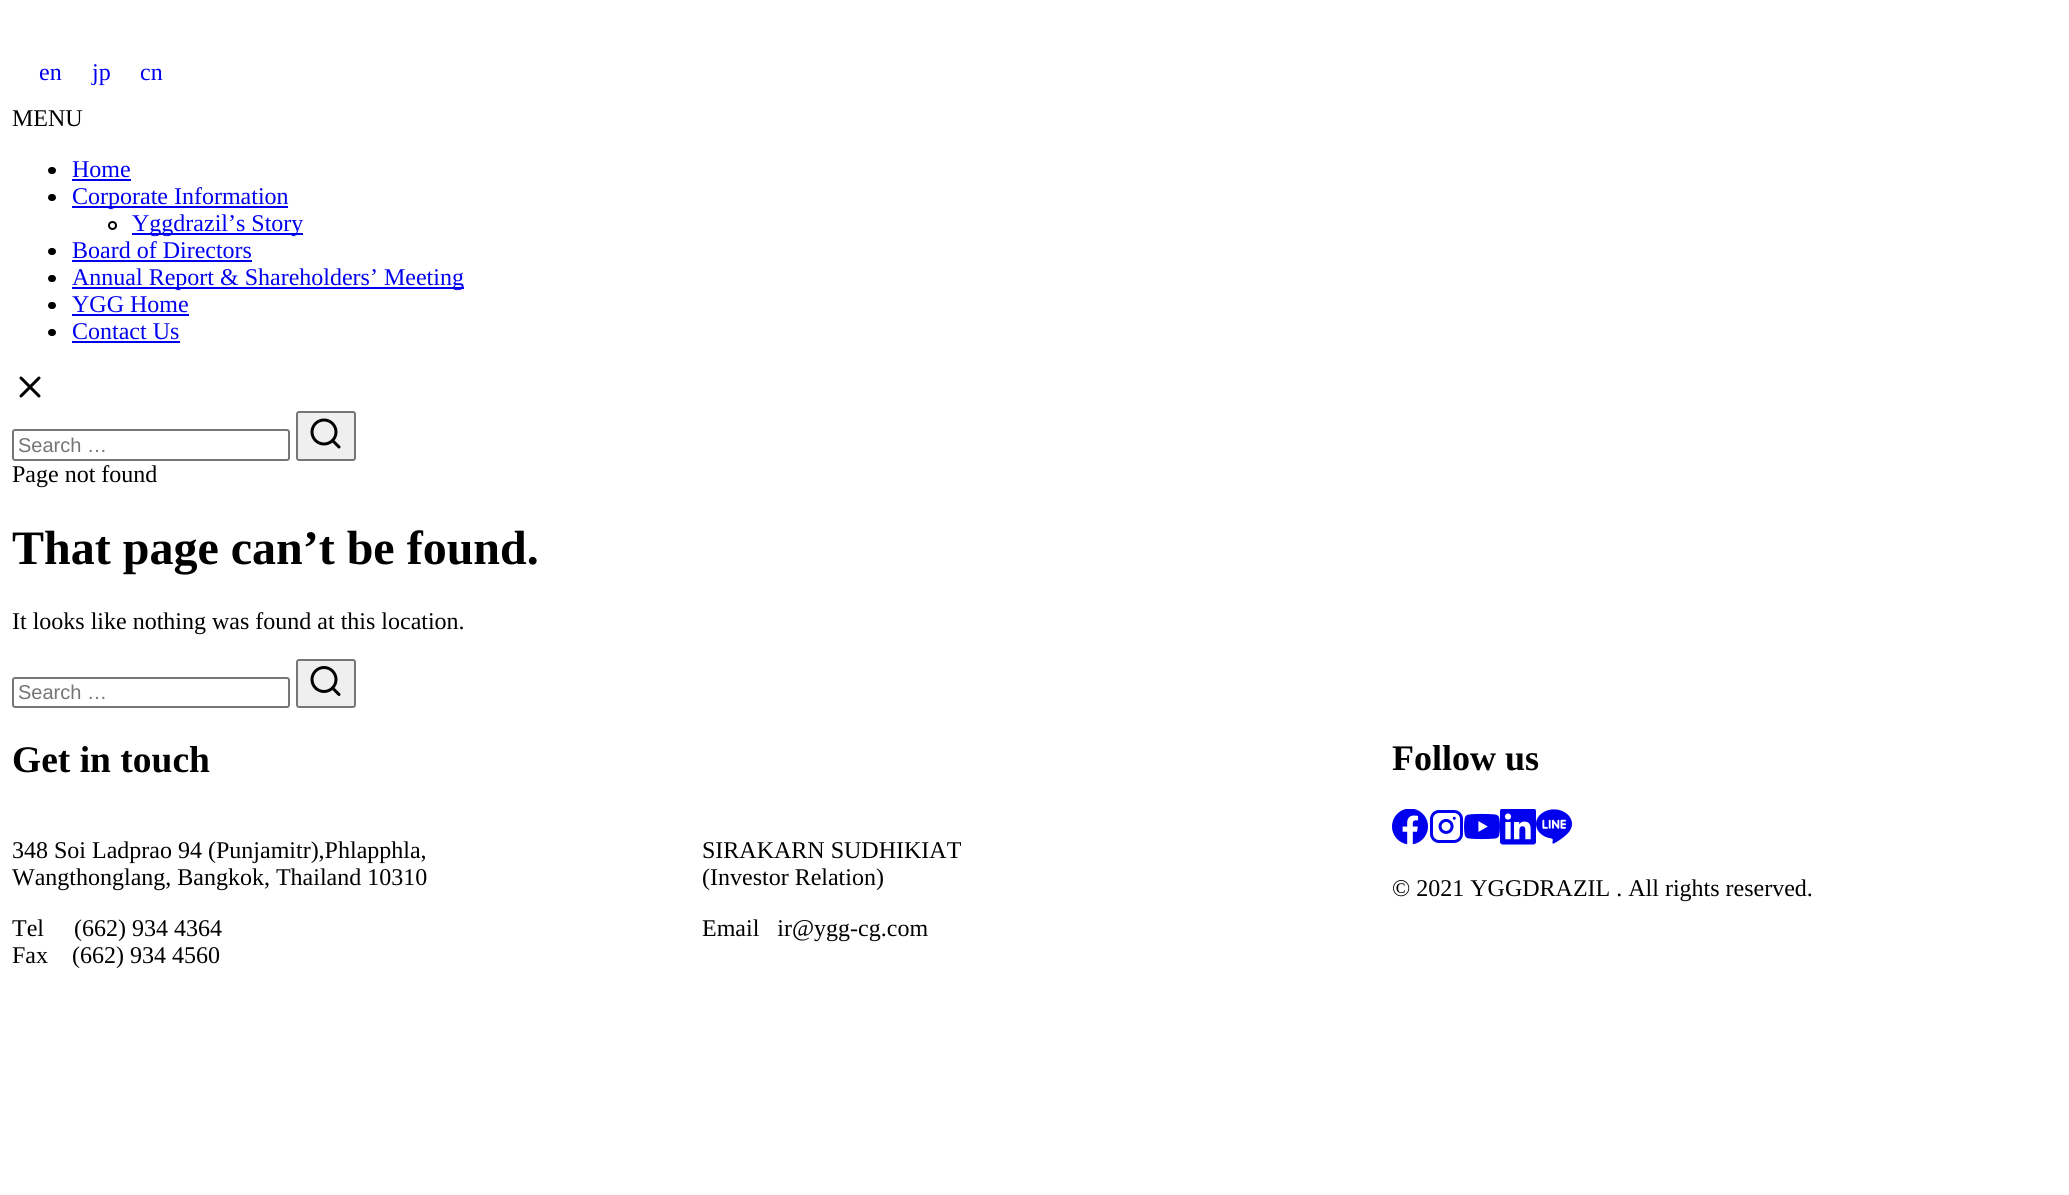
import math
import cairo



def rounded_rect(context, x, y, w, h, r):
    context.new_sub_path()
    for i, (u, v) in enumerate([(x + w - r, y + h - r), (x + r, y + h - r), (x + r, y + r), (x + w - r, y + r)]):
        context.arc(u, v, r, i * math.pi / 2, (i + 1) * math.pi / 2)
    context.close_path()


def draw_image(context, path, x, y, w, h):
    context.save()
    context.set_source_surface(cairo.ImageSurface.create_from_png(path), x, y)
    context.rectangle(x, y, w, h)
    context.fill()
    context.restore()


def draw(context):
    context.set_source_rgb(1, 1, 1)
    context.paint()
    context.set_source_rgb(0, 0, 0)
    rounded_rect(context, 48, 167, 8, 7, 3.5)
    context.fill()
    context.set_source_rgb(0, 0, 238 / 255)
    context.rectangle(72, 179, 59, 2)
    context.fill()
    context.set_source_rgb(0, 0, 0)
    rounded_rect(context, 48, 194, 8, 7, 3.5)
    context.fill()
    context.set_source_rgb(0, 0, 238 / 255)
    context.rectangle(72, 206, 216, 2)
    context.fill()
    context.arc(112.5, 225.5, 3.5, 0, 2 * math.pi)
    context.set_source_rgb(0, 0, 0)
    context.stroke()
    context.set_source_rgb(0, 0, 238 / 255)
    context.rectangle(132, 233, 171, 2)
    context.fill()
    context.set_source_rgb(0, 0, 0)
    rounded_rect(context, 48, 248, 8, 7, 3.5)
    context.fill()
    context.set_source_rgb(0, 0, 238 / 255)
    context.rectangle(72, 260, 180, 2)
    context.fill()
    context.set_source_rgb(0, 0, 0)
    rounded_rect(context, 48, 275, 8, 7, 3.5)
    context.fill()
    context.set_source_rgb(0, 0, 238 / 255)
    context.rectangle(72, 287, 392, 2)
    context.fill()
    context.set_source_rgb(0, 0, 0)
    rounded_rect(context, 48, 302, 8, 7, 3.5)
    context.fill()
    context.set_source_rgb(0, 0, 238 / 255)
    context.rectangle(72, 314, 117, 2)
    context.fill()
    context.set_source_rgb(0, 0, 0)
    rounded_rect(context, 48, 329, 8, 7, 3.5)
    context.fill()
    context.set_source_rgb(0, 0, 238 / 255)
    context.rectangle(72, 341, 108, 2)
    context.fill()
    context.new_path()
    context.move_to(39, 378)
    context.line_to(21, 396)
    context.move_to(21, 378)
    context.line_to(39, 396)
    context.set_source_rgb(0, 0, 0)
    context.set_line_width(3)
    context.set_line_cap(cairo.LineCap.ROUND)
    context.set_line_join(cairo.LineJoin.ROUND)
    context.stroke()
    rounded_rect(context, 13, 430, 276, 30, 2)
    context.set_source_rgb(118 / 255, 118 / 255, 118 / 255)
    context.set_line_width(2)
    context.set_line_cap(cairo.LineCap.BUTT)
    context.set_line_join(cairo.LineJoin.MITER)
    context.stroke()
    context.set_source_rgb(239 / 255, 239 / 255, 239 / 255)
    rounded_rect(context, 297, 412, 58, 48, 2)
    context.fill_preserve()
    context.set_source_rgb(118 / 255, 118 / 255, 118 / 255)
    context.stroke()
    context.arc(324, 432, 12, 0, 2 * math.pi)
    context.set_source_rgb(0, 0, 0)
    context.set_line_width(3)
    context.stroke()
    context.new_path()
    context.move_to(339, 447)
    context.line_to(332.5, 440.5)
    context.set_line_cap(cairo.LineCap.ROUND)
    context.set_line_join(cairo.LineJoin.ROUND)
    context.stroke()
    rounded_rect(context, 13, 678, 276, 29, 2)
    context.set_source_rgb(118 / 255, 118 / 255, 118 / 255)
    context.set_line_width(2)
    context.set_line_cap(cairo.LineCap.BUTT)
    context.set_line_join(cairo.LineJoin.MITER)
    context.stroke()
    context.set_source_rgb(239 / 255, 239 / 255, 239 / 255)
    rounded_rect(context, 297, 660, 58, 47, 2)
    context.fill_preserve()
    context.set_source_rgb(118 / 255, 118 / 255, 118 / 255)
    context.stroke()
    context.arc(324, 679.5, 12, 0, 2 * math.pi)
    context.set_source_rgb(0, 0, 0)
    context.set_line_width(3)
    context.stroke()
    context.new_path()
    context.move_to(339, 694.5)
    context.line_to(332.5, 688)
    context.set_line_cap(cairo.LineCap.ROUND)
    context.set_line_join(cairo.LineJoin.ROUND)
    context.stroke()
    draw_image(context, "images/1.png", 1392, 809, 36, 36)
    draw_image(context, "images/2.png", 1430, 810, 33, 33)
    draw_image(context, "images/3.png", 1464, 813, 36, 27)
    draw_image(context, "images/4.png", 1500, 809, 36, 36)
    draw_image(context, "images/5.png", 1536, 809, 36, 35)
    context.select_font_face("Liberation Serif")
    context.set_font_size(24)
    context.set_source_rgb(0, 0, 238 / 255)
    context.move_to(39, 80)
    context.show_text("en")
    context.move_to(92, 80)
    context.show_text("jp")
    context.move_to(140, 80)
    context.show_text("cn")
    context.set_source_rgb(0, 0, 0)
    context.move_to(12, 126)
    context.show_text("MENU")
    context.set_source_rgb(0, 0, 238 / 255)
    context.move_to(72, 177)
    context.show_text("Home")
    context.move_to(72, 204)
    context.show_text("Corporate Information")
    context.move_to(132, 231)
    context.show_text("Yggdrazil’s Story")
    context.move_to(72, 258)
    context.show_text("Board of Directors")
    context.move_to(72, 285)
    context.show_text("Annual Report & Shareholders’ Meeting")
    context.move_to(72, 312)
    context.show_text("YGG Home")
    context.move_to(72, 339)
    context.show_text("Contact Us")
    context.select_font_face("Liberation Sans")
    context.set_font_size(20)
    context.set_source_rgb(117 / 255, 117 / 255, 117 / 255)
    context.move_to(18, 452)
    context.show_text("Search …")
    context.select_font_face("Liberation Serif")
    context.set_font_size(24)
    context.set_source_rgb(0, 0, 0)
    context.move_to(12, 482)
    context.show_text("Page not found")
    context.select_font_face("Liberation Serif", cairo.FontSlant.NORMAL, cairo.FontWeight.BOLD)
    context.set_font_size(48)
    context.move_to(12, 564)
    context.show_text("That page can’t be found.")
    context.select_font_face("Liberation Serif")
    context.set_font_size(24)
    context.move_to(12, 629)
    context.show_text("It looks like nothing was found at this location.")
    context.select_font_face("Liberation Sans")
    context.set_font_size(20)
    context.set_source_rgb(117 / 255, 117 / 255, 117 / 255)
    context.move_to(18, 699)
    context.show_text("Search …")
    context.select_font_face("Liberation Serif", cairo.FontSlant.NORMAL, cairo.FontWeight.BOLD)
    context.set_font_size(37.5)
    context.set_source_rgb(0, 0, 0)
    context.move_to(12, 772)
    context.show_text("Get in touch")
    context.select_font_face("Liberation Serif")
    context.set_font_size(24)
    context.move_to(12, 858)
    context.show_text("348 Soi Ladprao 94 (Punjamitr),Phlapphla,")
    context.move_to(12, 885)
    context.show_text("Wangthonglang, Bangkok, Thailand 10310")
    context.move_to(12, 936)
    context.show_text("Tel    (662) 934 4364")
    context.move_to(12, 963)
    context.show_text("Fax   (662) 934 4560")
    context.move_to(702, 858)
    context.show_text("SIRAKARN SUDHIKIAT")
    context.move_to(702, 885)
    context.show_text("(Investor Relation)")
    context.move_to(702, 936)
    context.show_text("Email   ir@ygg-cg.com")
    context.select_font_face("Liberation Serif", cairo.FontSlant.NORMAL, cairo.FontWeight.BOLD)
    context.set_font_size(36)
    context.move_to(1392, 770)
    context.show_text("Follow us")
    context.select_font_face("Liberation Serif")
    context.set_font_size(24)
    context.move_to(1392, 896)
    context.show_text("© 2021 YGGDRAZIL . All rights reserved.")


surface = cairo.ImageSurface(cairo.Format.RGB24, 2069, 1195)
context = cairo.Context(surface)
options = cairo.FontOptions()
options.set_hint_metrics(cairo.HintMetrics.OFF)
options.set_hint_style(cairo.HintStyle.NONE)
context.set_font_options(options)
context.set_miter_limit(4)
draw(context)
surface.write_to_png("out.png")
